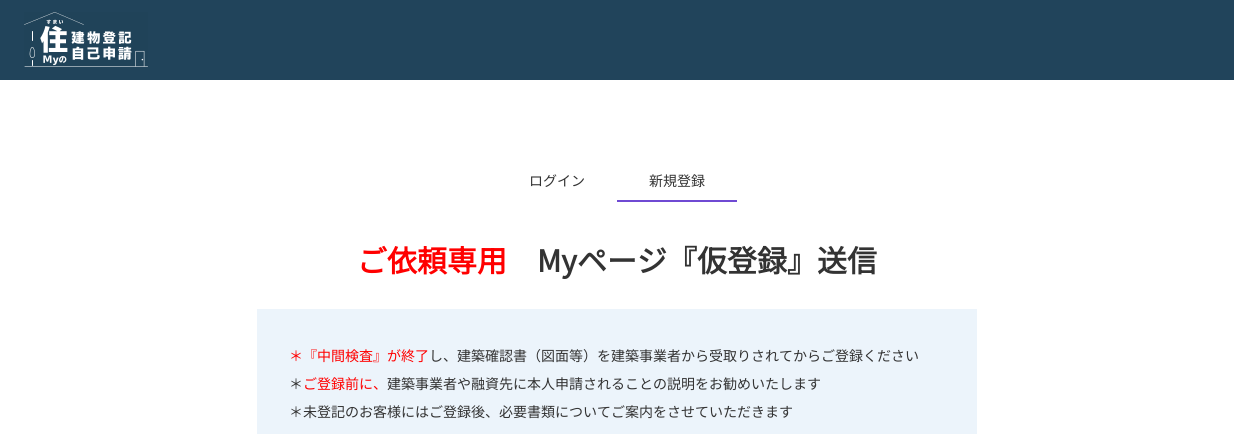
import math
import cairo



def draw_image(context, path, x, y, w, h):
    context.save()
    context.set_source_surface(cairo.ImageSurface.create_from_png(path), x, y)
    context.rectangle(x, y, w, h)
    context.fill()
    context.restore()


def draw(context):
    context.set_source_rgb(1, 1, 1)
    context.paint()
    context.set_source_rgb(33 / 255, 68 / 255, 91 / 255)
    context.rectangle(0, 0, 1234, 80)
    context.fill()
    draw_image(context, "images/1.png", 24, 12, 124, 55)
    context.set_source_rgb(111 / 255, 74 / 255, 211 / 255)
    context.rectangle(617, 200, 120, 2)
    context.fill()
    context.set_source_rgb(236 / 255, 244 / 255, 251 / 255)
    context.rectangle(257, 309, 720, 125)
    context.fill()
    context.select_font_face("Noto Sans JP Thin")
    context.set_font_size(14)
    context.set_source_rgb(51 / 255, 51 / 255, 51 / 255)
    context.move_to(529, 186)
    context.show_text("ログイン")
    context.move_to(649, 186)
    context.show_text("新規登録")
    context.select_font_face("Noto Sans JP", cairo.FontSlant.NORMAL, cairo.FontWeight.BOLD)
    context.set_font_size(30)
    context.set_source_rgb(1, 0, 0)
    context.move_to(357, 272)
    context.show_text("ご依頼専用")
    context.set_source_rgb(51 / 255, 51 / 255, 51 / 255)
    context.move_to(537, 272)
    context.show_text("Myページ『仮登録』送信")
    context.select_font_face("Noto Sans JP Thin")
    context.set_font_size(14)
    context.set_source_rgb(1, 0, 0)
    context.move_to(289, 361)
    context.show_text("＊『中間検査』が終了")
    context.set_source_rgb(51 / 255, 51 / 255, 51 / 255)
    context.move_to(429, 361)
    context.show_text("し、建築確認書（図面等）を建築事業者から受取りされてからご登録ください")
    context.move_to(289, 389)
    context.show_text("＊")
    context.set_source_rgb(1, 0, 0)
    context.move_to(303, 389)
    context.show_text("ご登録前に、")
    context.set_source_rgb(51 / 255, 51 / 255, 51 / 255)
    context.move_to(387, 389)
    context.show_text("建築事業者や融資先に本人申請されることの説明をお勧めいたします")
    context.move_to(289, 417)
    context.show_text("＊未登記のお客様にはご登録後、必要書類についてご案内をさせていただきます")


surface = cairo.ImageSurface(cairo.Format.RGB24, 1234, 434)
context = cairo.Context(surface)
options = cairo.FontOptions()
options.set_hint_metrics(cairo.HintMetrics.OFF)
options.set_hint_style(cairo.HintStyle.NONE)
context.set_font_options(options)
context.set_miter_limit(4)
draw(context)
surface.write_to_png("out.png")
